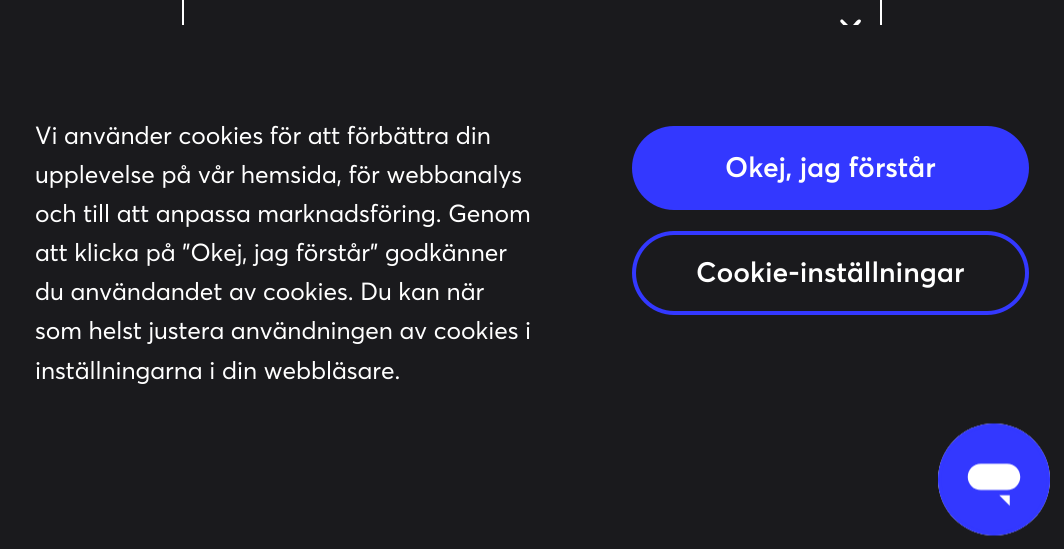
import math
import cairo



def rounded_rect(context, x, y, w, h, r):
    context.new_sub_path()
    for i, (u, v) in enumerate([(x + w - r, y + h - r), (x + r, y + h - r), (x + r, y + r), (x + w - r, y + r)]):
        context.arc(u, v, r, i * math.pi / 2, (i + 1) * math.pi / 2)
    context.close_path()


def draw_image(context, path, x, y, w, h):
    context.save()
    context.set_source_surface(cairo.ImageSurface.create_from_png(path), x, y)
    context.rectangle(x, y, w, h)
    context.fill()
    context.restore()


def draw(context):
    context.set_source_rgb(26 / 255, 26 / 255, 29 / 255)
    context.paint()
    context.rectangle(183, -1, 698, 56)
    context.set_source_rgb(1, 1, 1)
    context.stroke()
    context.new_path()
    context.move_to(843, 20)
    context.line_to(847.5, 24.5)
    context.curve_to(848.5, 25.5, 852.5, 28.5, 852.5, 30.5)
    context.curve_to(851.5, 34.5, 847, 29, 846.5, 28.5)
    context.line_to(840.5, 22)
    context.curve_to(839.5, 20, 842, 18.5, 843, 20)
    context.close_path()
    context.fill()
    context.new_path()
    context.move_to(849, 28.5)
    context.line_to(853.5, 24.5)
    context.curve_to(854.5, 23.5, 857.5, 19, 859.5, 19.5)
    context.curve_to(863.5, 20.5, 858, 25, 857.5, 25.5)
    context.line_to(851, 31.5)
    context.curve_to(849.5, 32.5, 848, 30, 849, 28.5)
    context.close_path()
    context.fill()
    context.set_source_rgb(26 / 255, 26 / 255, 29 / 255)
    context.rectangle(182, 25, 700, 31)
    context.fill()
    context.set_source_rgb(51 / 255, 56 / 255, 1)
    rounded_rect(context, 632, 126, 397, 84, 42)
    context.fill()
    rounded_rect(context, 634, 233, 393, 80, 40)
    context.set_line_width(4)
    context.stroke()
    draw_image(context, "images/1.png", 938, 423, 112, 113)
    context.select_font_face("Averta")
    context.set_font_size(24.5)
    context.set_source_rgb(1, 1, 1)
    context.move_to(35, 144)
    context.show_text("Vi använder cookies för att förbättra din")
    context.move_to(35, 183)
    context.show_text("upplevelse på vår hemsida, för webbanalys")
    context.move_to(35, 222)
    context.show_text("och till att anpassa marknadsföring. Genom")
    context.move_to(35, 261)
    context.show_text("att klicka på ”Okej, jag förstår” godkänner")
    context.move_to(35, 300)
    context.show_text("du användandet av cookies. Du kan när")
    context.move_to(35, 339)
    context.show_text("som helst justera användningen av cookies i")
    context.move_to(35, 379)
    context.show_text("inställningarna i din webbläsare.")
    context.select_font_face("Averta SemiBold")
    context.set_font_size(28)
    context.move_to(725, 177)
    context.show_text("Okej, jag förstår")
    context.move_to(696, 282)
    context.show_text("Cookie-inställningar")


surface = cairo.ImageSurface(cairo.Format.RGB24, 1064, 549)
context = cairo.Context(surface)
options = cairo.FontOptions()
options.set_hint_metrics(cairo.HintMetrics.OFF)
options.set_hint_style(cairo.HintStyle.NONE)
context.set_font_options(options)
context.set_miter_limit(4)
draw(context)
surface.write_to_png("out.png")
